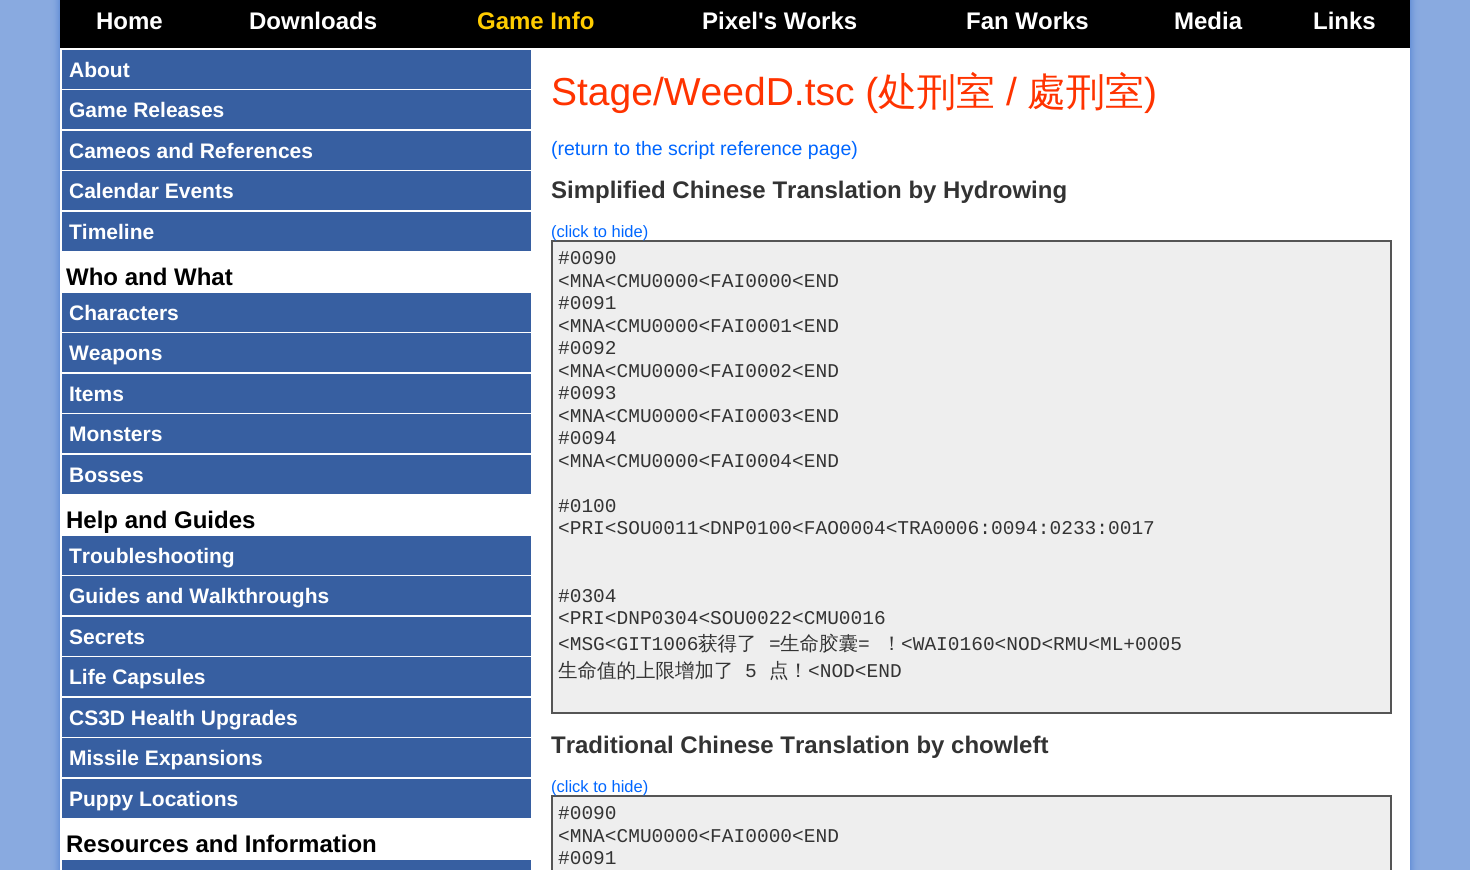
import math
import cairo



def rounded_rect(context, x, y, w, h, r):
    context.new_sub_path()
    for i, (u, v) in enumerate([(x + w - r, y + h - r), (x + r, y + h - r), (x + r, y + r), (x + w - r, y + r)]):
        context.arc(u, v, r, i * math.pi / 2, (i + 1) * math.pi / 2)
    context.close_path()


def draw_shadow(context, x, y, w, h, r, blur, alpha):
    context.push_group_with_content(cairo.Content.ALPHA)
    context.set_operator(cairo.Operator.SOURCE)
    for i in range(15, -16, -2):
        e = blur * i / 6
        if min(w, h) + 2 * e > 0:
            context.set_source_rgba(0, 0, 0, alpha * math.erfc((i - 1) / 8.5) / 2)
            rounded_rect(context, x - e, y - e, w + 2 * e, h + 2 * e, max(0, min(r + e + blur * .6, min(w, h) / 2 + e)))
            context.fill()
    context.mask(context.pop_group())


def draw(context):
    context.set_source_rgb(137 / 255, 170 / 255, 224 / 255)
    context.paint()
    context.set_source_rgb(71 / 255, 122 / 255, 207 / 255)
    draw_shadow(context, 60, -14, 1350, 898, 0, 4.5, 1)
    context.set_source_rgb(1, 1, 1)
    context.rectangle(60, 48, 1350, 822)
    context.fill()
    context.set_source_rgb(0, 0, 0)
    context.rectangle(60, 0, 1350, 48)
    context.fill()
    context.set_source_rgb(55 / 255, 95 / 255, 161 / 255)
    context.rectangle(62, 50, 469, 39)
    context.fill()
    context.rectangle(62, 90, 469, 39)
    context.fill()
    context.rectangle(62, 131, 469, 39)
    context.fill()
    context.rectangle(62, 171, 469, 39)
    context.fill()
    context.rectangle(62, 212, 469, 39)
    context.fill()
    context.rectangle(62, 293, 469, 39)
    context.fill()
    context.rectangle(62, 333, 469, 39)
    context.fill()
    context.rectangle(62, 374, 469, 39)
    context.fill()
    context.rectangle(62, 414, 469, 39)
    context.fill()
    context.rectangle(62, 455, 469, 39)
    context.fill()
    context.rectangle(62, 536, 469, 39)
    context.fill()
    context.rectangle(62, 576, 469, 39)
    context.fill()
    context.rectangle(62, 617, 469, 39)
    context.fill()
    context.rectangle(62, 657, 469, 39)
    context.fill()
    context.rectangle(62, 698, 469, 39)
    context.fill()
    context.rectangle(62, 738, 469, 39)
    context.fill()
    context.rectangle(62, 779, 469, 39)
    context.fill()
    context.rectangle(62, 860, 469, 10)
    context.fill()
    context.set_source_rgb(238 / 255, 238 / 255, 238 / 255)
    context.rectangle(552, 241, 839, 472)
    context.fill_preserve()
    context.set_source_rgb(85 / 255, 85 / 255, 85 / 255)
    context.stroke()
    context.set_source_rgb(238 / 255, 238 / 255, 238 / 255)
    context.rectangle(552, 796, 839, 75)
    context.fill_preserve()
    context.set_source_rgb(85 / 255, 85 / 255, 85 / 255)
    context.stroke()
    context.select_font_face("Liberation Sans", cairo.FontSlant.NORMAL, cairo.FontWeight.BOLD)
    context.set_font_size(24)
    context.set_source_rgb(1, 1, 1)
    context.move_to(96, 29)
    context.show_text("Home")
    context.move_to(249, 29)
    context.show_text("Downloads")
    context.set_source_rgb(1, 204 / 255, 0)
    context.move_to(477, 29)
    context.show_text("Game Info")
    context.set_source_rgb(1, 1, 1)
    context.move_to(702, 29)
    context.show_text("Pixel's Works")
    context.move_to(966, 29)
    context.show_text("Fan Works")
    context.move_to(1174, 29)
    context.show_text("Media")
    context.move_to(1313, 29)
    context.show_text("Links")
    context.set_font_size(21)
    context.move_to(69, 77)
    context.show_text("About")
    context.move_to(69, 117)
    context.show_text("Game Releases")
    context.move_to(69, 158)
    context.show_text("Cameos and References")
    context.move_to(69, 198)
    context.show_text("Calendar Events")
    context.move_to(69, 239)
    context.show_text("Timeline")
    context.set_font_size(24)
    context.set_source_rgb(0, 0, 0)
    context.move_to(66, 285)
    context.show_text("Who and What")
    context.set_font_size(21)
    context.set_source_rgb(1, 1, 1)
    context.move_to(69, 320)
    context.show_text("Characters")
    context.move_to(69, 360)
    context.show_text("Weapons")
    context.move_to(69, 401)
    context.show_text("Items")
    context.move_to(69, 441)
    context.show_text("Monsters")
    context.move_to(69, 482)
    context.show_text("Bosses")
    context.set_font_size(24)
    context.set_source_rgb(0, 0, 0)
    context.move_to(66, 528)
    context.show_text("Help and Guides")
    context.set_font_size(21)
    context.set_source_rgb(1, 1, 1)
    context.move_to(69, 563)
    context.show_text("Troubleshooting")
    context.move_to(69, 603)
    context.show_text("Guides and Walkthroughs")
    context.move_to(69, 644)
    context.show_text("Secrets")
    context.move_to(69, 684)
    context.show_text("Life Capsules")
    context.move_to(69, 725)
    context.show_text("CS3D Health Upgrades")
    context.move_to(69, 765)
    context.show_text("Missile Expansions")
    context.move_to(69, 806)
    context.show_text("Puppy Locations")
    context.set_font_size(24)
    context.set_source_rgb(0, 0, 0)
    context.move_to(66, 852)
    context.show_text("Resources and Information")
    context.select_font_face("Liberation Sans")
    context.set_font_size(39)
    context.set_source_rgb(1, 51 / 255, 0)
    context.move_to(551, 105)
    context.show_text("Stage/WeedD.tsc (")
    context.select_font_face("WenQuanYi Zen Hei Medium")
    context.move_to(878, 105)
    context.show_text("处刑室")
    context.select_font_face("Liberation Sans")
    context.move_to(1006, 105)
    context.show_text("/")
    context.select_font_face("WenQuanYi Zen Hei Medium")
    context.move_to(1027, 105)
    context.show_text("處刑室")
    context.select_font_face("Liberation Sans")
    context.move_to(1144, 105)
    context.show_text(")")
    context.set_font_size(19.5)
    context.set_source_rgb(0, 102 / 255, 1)
    context.move_to(551, 155)
    context.show_text("(return to the script reference page)")
    context.select_font_face("Liberation Sans", cairo.FontSlant.NORMAL, cairo.FontWeight.BOLD)
    context.set_font_size(24)
    context.set_source_rgb(51 / 255, 51 / 255, 51 / 255)
    context.move_to(551, 198)
    context.show_text("Simplified Chinese Translation by Hydrowing")
    context.select_font_face("Liberation Sans")
    context.set_font_size(16.5)
    context.set_source_rgb(0, 102 / 255, 1)
    context.move_to(551, 237)
    context.show_text("(click to hide)")
    context.select_font_face("Liberation Mono")
    context.set_font_size(19.5)
    context.set_source_rgb(51 / 255, 51 / 255, 51 / 255)
    context.move_to(558, 264)
    context.show_text("#0090")
    context.move_to(558, 287)
    context.show_text("<MNA<CMU0000<FAI0000<END")
    context.move_to(558, 309)
    context.show_text("#0091")
    context.move_to(558, 332)
    context.show_text("<MNA<CMU0000<FAI0001<END")
    context.move_to(558, 354)
    context.show_text("#0092")
    context.move_to(558, 377)
    context.show_text("<MNA<CMU0000<FAI0002<END")
    context.move_to(558, 399)
    context.show_text("#0093")
    context.move_to(558, 422)
    context.show_text("<MNA<CMU0000<FAI0003<END")
    context.move_to(558, 444)
    context.show_text("#0094")
    context.move_to(558, 467)
    context.show_text("<MNA<CMU0000<FAI0004<END")
    context.move_to(558, 512)
    context.show_text("#0100")
    context.move_to(558, 534)
    context.show_text("<PRI<SOU0011<DNP0100<FAO0004<TRA0006:0094:0233:0017")
    context.move_to(558, 602)
    context.show_text("#0304")
    context.move_to(558, 624)
    context.show_text("<PRI<DNP0304<SOU0022<CMU0016")
    context.move_to(558, 650)
    context.show_text("<MSG<GIT1006")
    context.select_font_face("WenQuanYi Zen Hei Medium")
    context.move_to(698, 650)
    context.show_text("获得了")
    context.select_font_face("Liberation Mono")
    context.move_to(769, 650)
    context.show_text("=")
    context.select_font_face("WenQuanYi Zen Hei Medium")
    context.move_to(780, 650)
    context.show_text("生命胶囊")
    context.select_font_face("Liberation Mono")
    context.move_to(858, 650)
    context.show_text("=")
    context.select_font_face("WenQuanYi Zen Hei Medium")
    context.move_to(882, 650)
    context.show_text("！")
    context.select_font_face("Liberation Mono")
    context.move_to(901, 650)
    context.show_text("<WAI0160<NOD<RMU<ML+0005")
    context.select_font_face("WenQuanYi Zen Hei Medium")
    context.move_to(558, 677)
    context.show_text("生命值的上限增加了")
    context.select_font_face("Liberation Mono")
    context.move_to(745, 677)
    context.show_text("5")
    context.select_font_face("WenQuanYi Zen Hei Medium")
    context.move_to(769, 677)
    context.show_text("点！")
    context.select_font_face("Liberation Mono")
    context.move_to(808, 677)
    context.show_text("<NOD<END")
    context.select_font_face("Liberation Sans", cairo.FontSlant.NORMAL, cairo.FontWeight.BOLD)
    context.set_font_size(24)
    context.move_to(551, 753)
    context.show_text("Traditional Chinese Translation by chowleft")
    context.select_font_face("Liberation Sans")
    context.set_font_size(16.5)
    context.set_source_rgb(0, 102 / 255, 1)
    context.move_to(551, 792)
    context.show_text("(click to hide)")
    context.select_font_face("Liberation Mono")
    context.set_font_size(19.5)
    context.set_source_rgb(51 / 255, 51 / 255, 51 / 255)
    context.move_to(558, 819)
    context.show_text("#0090")
    context.move_to(558, 842)
    context.show_text("<MNA<CMU0000<FAI0000<END")
    context.move_to(558, 864)
    context.show_text("#0091")


surface = cairo.ImageSurface(cairo.Format.RGB24, 1470, 870)
context = cairo.Context(surface)
options = cairo.FontOptions()
options.set_hint_metrics(cairo.HintMetrics.OFF)
options.set_hint_style(cairo.HintStyle.NONE)
context.set_font_options(options)
context.set_miter_limit(4)
draw(context)
surface.write_to_png("out.png")
